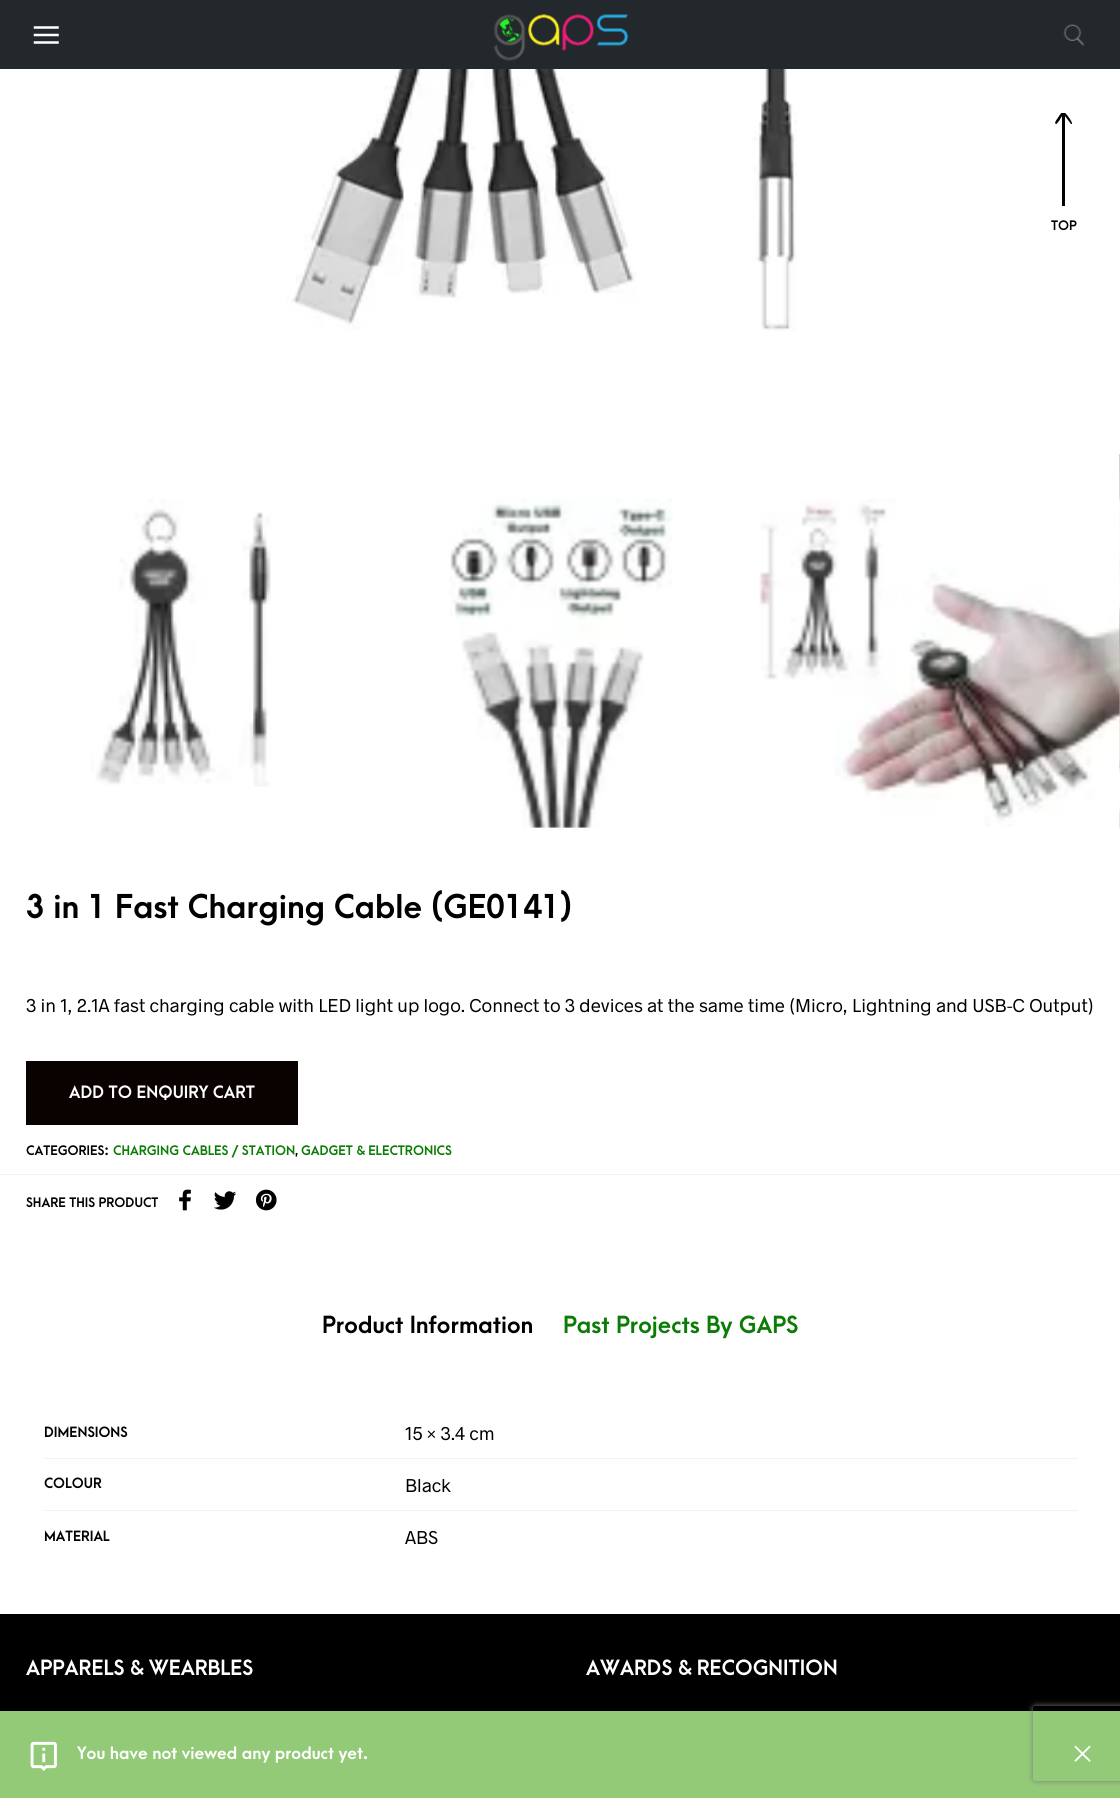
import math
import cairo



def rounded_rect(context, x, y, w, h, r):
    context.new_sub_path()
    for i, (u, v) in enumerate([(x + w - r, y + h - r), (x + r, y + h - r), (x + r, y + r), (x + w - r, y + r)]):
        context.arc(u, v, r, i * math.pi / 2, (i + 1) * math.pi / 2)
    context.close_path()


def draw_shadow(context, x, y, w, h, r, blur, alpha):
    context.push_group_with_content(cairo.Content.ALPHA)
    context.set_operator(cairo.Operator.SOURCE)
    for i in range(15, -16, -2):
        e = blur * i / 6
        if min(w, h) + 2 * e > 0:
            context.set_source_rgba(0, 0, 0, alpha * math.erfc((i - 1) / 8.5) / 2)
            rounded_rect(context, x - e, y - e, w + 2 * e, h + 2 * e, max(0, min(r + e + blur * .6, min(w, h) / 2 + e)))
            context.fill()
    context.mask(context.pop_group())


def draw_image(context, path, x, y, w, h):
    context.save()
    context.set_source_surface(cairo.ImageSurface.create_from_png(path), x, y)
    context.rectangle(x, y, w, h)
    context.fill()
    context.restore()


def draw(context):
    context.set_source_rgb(1, 1, 1)
    context.paint()
    context.set_source_rgb(35 / 255, 40 / 255, 45 / 255)
    context.rectangle(0, 0, 1120, 69)
    context.fill()
    draw_image(context, "images/1.png", 33, 26, 26, 18)
    draw_image(context, "images/2.png", 494, 14, 135, 47)
    draw_image(context, "images/3.png", 1063, 24, 22, 22)
    context.save()
    context.rectangle(1055, 113, 18, 95)
    context.clip()
    context.set_source_rgb(0, 0, 0)
    context.new_path()
    context.move_to(1064, 112)
    context.curve_to(1066, 113, 1075, 125, 1071, 124)
    context.line_to(1065, 116)
    context.line_to(1065, 206)
    context.line_to(1062, 206)
    context.line_to(1062, 116)
    context.line_to(1059, 121)
    context.curve_to(1058, 122, 1057, 124, 1056, 124)
    context.curve_to(1053, 123, 1059, 117, 1059, 116)
    context.curve_to(1060, 115, 1061, 112, 1064, 112)
    context.close_path()
    context.fill()
    context.restore()
    draw_image(context, "images/4.png", 287, 69, 510, 262)
    draw_image(context, "images/5.png", 91, 499, 180, 288)
    draw_image(context, "images/6.png", 449, 498, 224, 330)
    draw_image(context, "images/8.png", 759, 499, 361, 328)
    draw_image(context, "images/7.png", 1119, 454, 1, 374)
    context.set_source_rgb(10 / 255, 2 / 255, 0)
    context.rectangle(26, 1061, 272, 64)
    context.fill()
    context.set_source_rgb(242 / 255, 242 / 255, 242 / 255)
    context.rectangle(0, 1174, 1120, 1)
    context.fill()
    draw_image(context, "images/9.png", 179, 1189, 12, 22)
    draw_image(context, "images/10.png", 214, 1191, 22, 19)
    draw_image(context, "images/11.png", 255, 1189, 22, 22)
    context.set_source_rgb(147 / 255, 202 / 255, 120 / 255)
    context.rectangle(0, 1711, 1120, 87)
    context.fill()
    draw_image(context, "images/12.png", 30, 1741, 27, 30)
    draw_image(context, "images/13.png", 1074, 1745, 17, 17)
    context.set_source_rgb(242 / 255, 242 / 255, 242 / 255)
    context.rectangle(44, 1458, 1034, 1)
    context.fill()
    context.rectangle(44, 1510, 1034, 1)
    context.fill()
    context.set_source_rgb(0, 0, 0)
    context.rectangle(0, 1614, 1120, 97)
    context.fill()
    context.save()
    context.set_fill_rule(cairo.FillRule.EVEN_ODD)
    context.new_path()
    context.move_to(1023, 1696)
    context.line_to(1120, 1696)
    context.line_to(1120, 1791)
    context.line_to(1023, 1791)
    context.close_path()
    context.move_to(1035.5, 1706)
    context.line_to(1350.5, 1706)
    context.curve_to(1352, 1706, 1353, 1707, 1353, 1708.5)
    context.line_to(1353, 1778.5)
    context.curve_to(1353, 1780, 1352, 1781, 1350.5, 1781)
    context.line_to(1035.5, 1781)
    context.curve_to(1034, 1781, 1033, 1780, 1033, 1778.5)
    context.line_to(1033, 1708.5)
    context.curve_to(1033, 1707, 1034, 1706, 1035.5, 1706)
    context.close_path()
    context.clip()
    context.set_source_rgb(128 / 255, 128 / 255, 128 / 255)
    draw_shadow(context, 1033, 1706, 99, 75, 2.5, 3, 1)
    context.restore()
    context.select_font_face("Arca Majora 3", cairo.FontSlant.NORMAL, cairo.FontWeight.BOLD)
    context.set_font_size(12.5)
    context.move_to(1051, 230)
    context.show_text("TOP")
    context.set_font_size(31.25)
    context.move_to(26, 918)
    context.show_text("3 in 1 Fast Charging Cable (GE0141)")
    context.select_font_face("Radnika")
    context.set_font_size(18.75)
    context.move_to(26, 1012)
    context.show_text("3 in 1, 2.1A fast charging cable with LED light up logo. Connect to 3 devices at the same time (Micro, Lightning and USB-C Output)")
    context.select_font_face("Arca Majora 3", cairo.FontSlant.NORMAL, cairo.FontWeight.BOLD)
    context.set_font_size(16.25)
    context.set_source_rgb(1, 1, 1)
    context.move_to(69, 1098)
    context.show_text("ADD TO ENQUIRY CART")
    context.set_font_size(12.5)
    context.set_source_rgb(0, 0, 0)
    context.move_to(26, 1155)
    context.show_text("CATEGORIES:")
    context.set_source_rgb(13 / 255, 124 / 255, 7 / 255)
    context.move_to(113, 1155)
    context.show_text("CHARGING CABLES / STATION")
    context.set_source_rgb(0, 0, 0)
    context.move_to(295, 1155)
    context.show_text(",")
    context.set_source_rgb(13 / 255, 124 / 255, 7 / 255)
    context.move_to(301, 1155)
    context.show_text("GADGET & ELECTRONICS")
    context.set_source_rgb(0, 0, 0)
    context.move_to(26, 1207)
    context.show_text("SHARE THIS PRODUCT")
    context.set_font_size(16.25)
    context.set_source_rgb(1, 1, 1)
    context.move_to(77, 1759)
    context.show_text("You have not viewed any product yet.")
    context.set_font_size(22.5)
    context.set_source_rgb(0, 0, 0)
    context.move_to(322, 1333)
    context.show_text("Product Information")
    context.set_source_rgb(13 / 255, 124 / 255, 7 / 255)
    context.move_to(563, 1333)
    context.show_text("Past Projects By GAPS")
    context.set_font_size(13.5)
    context.set_source_rgb(0, 0, 0)
    context.move_to(44, 1437)
    context.show_text("DIMENSIONS")
    context.select_font_face("Radnika")
    context.set_font_size(18.75)
    context.move_to(405, 1440)
    context.show_text("15 × 3.4 cm")
    context.select_font_face("Arca Majora 3", cairo.FontSlant.NORMAL, cairo.FontWeight.BOLD)
    context.set_font_size(13.5)
    context.move_to(44, 1488)
    context.show_text("COLOUR")
    context.select_font_face("Radnika")
    context.set_font_size(18.75)
    context.move_to(405, 1492)
    context.show_text("Black")
    context.select_font_face("Arca Majora 3", cairo.FontSlant.NORMAL, cairo.FontWeight.BOLD)
    context.set_font_size(13.5)
    context.move_to(44, 1541)
    context.show_text("MATERIAL")
    context.select_font_face("Radnika")
    context.set_font_size(18.75)
    context.move_to(405, 1544)
    context.show_text("ABS")
    context.select_font_face("Arca Majora 3", cairo.FontSlant.NORMAL, cairo.FontWeight.BOLD)
    context.set_font_size(20)
    context.set_source_rgb(1, 1, 1)
    context.move_to(26, 1675)
    context.show_text("APPARELS & WEARBLES")
    context.move_to(586, 1675)
    context.show_text("AWARDS & RECOGNITION")


surface = cairo.ImageSurface(cairo.Format.RGB24, 1120, 1798)
context = cairo.Context(surface)
options = cairo.FontOptions()
options.set_hint_metrics(cairo.HintMetrics.OFF)
options.set_hint_style(cairo.HintStyle.NONE)
context.set_font_options(options)
context.set_miter_limit(4)
draw(context)
surface.write_to_png("out.png")
